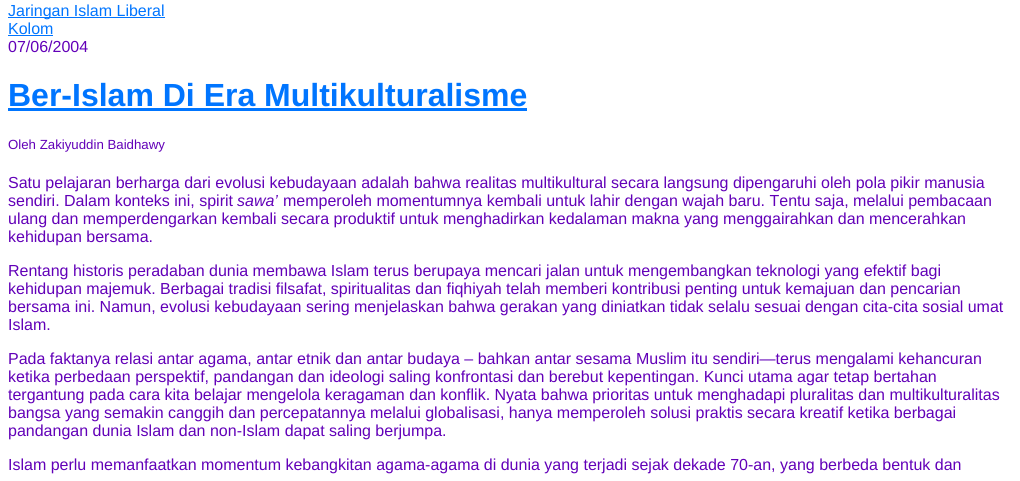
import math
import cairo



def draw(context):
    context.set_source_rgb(1, 1, 1)
    context.paint()
    context.set_source_rgb(0, 117 / 255, 1)
    context.rectangle(8, 17, 157, 1)
    context.fill()
    context.rectangle(8, 35, 45, 1)
    context.fill()
    context.rectangle(8, 108, 519, 3)
    context.fill()
    context.select_font_face("Liberation Sans")
    context.set_font_size(16)
    context.move_to(8, 16)
    context.show_text("Jaringan Islam Liberal")
    context.move_to(8, 34)
    context.show_text("Kolom")
    context.set_source_rgb(98 / 255, 0, 184 / 255)
    context.move_to(8, 52)
    context.show_text("07/06/2004")
    context.select_font_face("Liberation Sans", cairo.FontSlant.NORMAL, cairo.FontWeight.BOLD)
    context.set_font_size(32)
    context.set_source_rgb(0, 117 / 255, 1)
    context.move_to(8, 106)
    context.show_text("Ber-Islam Di Era Multikulturalisme")
    context.select_font_face("Liberation Sans")
    context.set_font_size(13.25)
    context.set_source_rgb(98 / 255, 0, 184 / 255)
    context.move_to(8, 149)
    context.show_text("Oleh Zakiyuddin Baidhawy")
    context.set_font_size(16)
    context.move_to(8, 188)
    context.show_text("Satu pelajaran berharga dari evolusi kebudayaan adalah bahwa realitas multikultural secara langsung dipengaruhi oleh pola pikir manusia")
    context.move_to(8, 206)
    context.show_text("sendiri. Dalam konteks ini, spirit")
    context.select_font_face("Liberation Sans", cairo.FontSlant.ITALIC)
    context.move_to(237, 206)
    context.show_text("sawa’")
    context.select_font_face("Liberation Sans")
    context.move_to(283, 206)
    context.show_text("memperoleh momentumnya kembali untuk lahir dengan wajah baru. Tentu saja, melalui pembacaan")
    context.move_to(8, 224)
    context.show_text("ulang dan memperdengarkan kembali secara produktif untuk menghadirkan kedalaman makna yang menggairahkan dan mencerahkan")
    context.move_to(8, 242)
    context.show_text("kehidupan bersama.")
    context.move_to(8, 276)
    context.show_text("Rentang historis peradaban dunia membawa Islam terus berupaya mencari jalan untuk mengembangkan teknologi yang efektif bagi")
    context.move_to(8, 294)
    context.show_text("kehidupan majemuk. Berbagai tradisi filsafat, spiritualitas dan fiqhiyah telah memberi kontribusi penting untuk kemajuan dan pencarian")
    context.move_to(8, 312)
    context.show_text("bersama ini. Namun, evolusi kebudayaan sering menjelaskan bahwa gerakan yang diniatkan tidak selalu sesuai dengan cita-cita sosial umat")
    context.move_to(8, 330)
    context.show_text("Islam.")
    context.move_to(8, 364)
    context.show_text("Pada faktanya relasi antar agama, antar etnik dan antar budaya – bahkan antar sesama Muslim itu sendiri—terus mengalami kehancuran")
    context.move_to(8, 382)
    context.show_text("ketika perbedaan perspektif, pandangan dan ideologi saling konfrontasi dan berebut kepentingan. Kunci utama agar tetap bertahan")
    context.move_to(8, 400)
    context.show_text("tergantung pada cara kita belajar mengelola keragaman dan konflik. Nyata bahwa prioritas untuk menghadapi pluralitas dan multikulturalitas")
    context.move_to(8, 418)
    context.show_text("bangsa yang semakin canggih dan percepatannya melalui globalisasi, hanya memperoleh solusi praktis secara kreatif ketika berbagai")
    context.move_to(8, 436)
    context.show_text("pandangan dunia Islam dan non-Islam dapat saling berjumpa.")
    context.move_to(8, 470)
    context.show_text("Islam perlu memanfaatkan momentum kebangkitan agama-agama di dunia yang terjadi sejak dekade 70-an, yang berbeda bentuk dan")


surface = cairo.ImageSurface(cairo.Format.RGB24, 1020, 481)
context = cairo.Context(surface)
options = cairo.FontOptions()
options.set_hint_metrics(cairo.HintMetrics.OFF)
options.set_hint_style(cairo.HintStyle.NONE)
context.set_font_options(options)
context.set_miter_limit(4)
draw(context)
surface.write_to_png("out.png")
